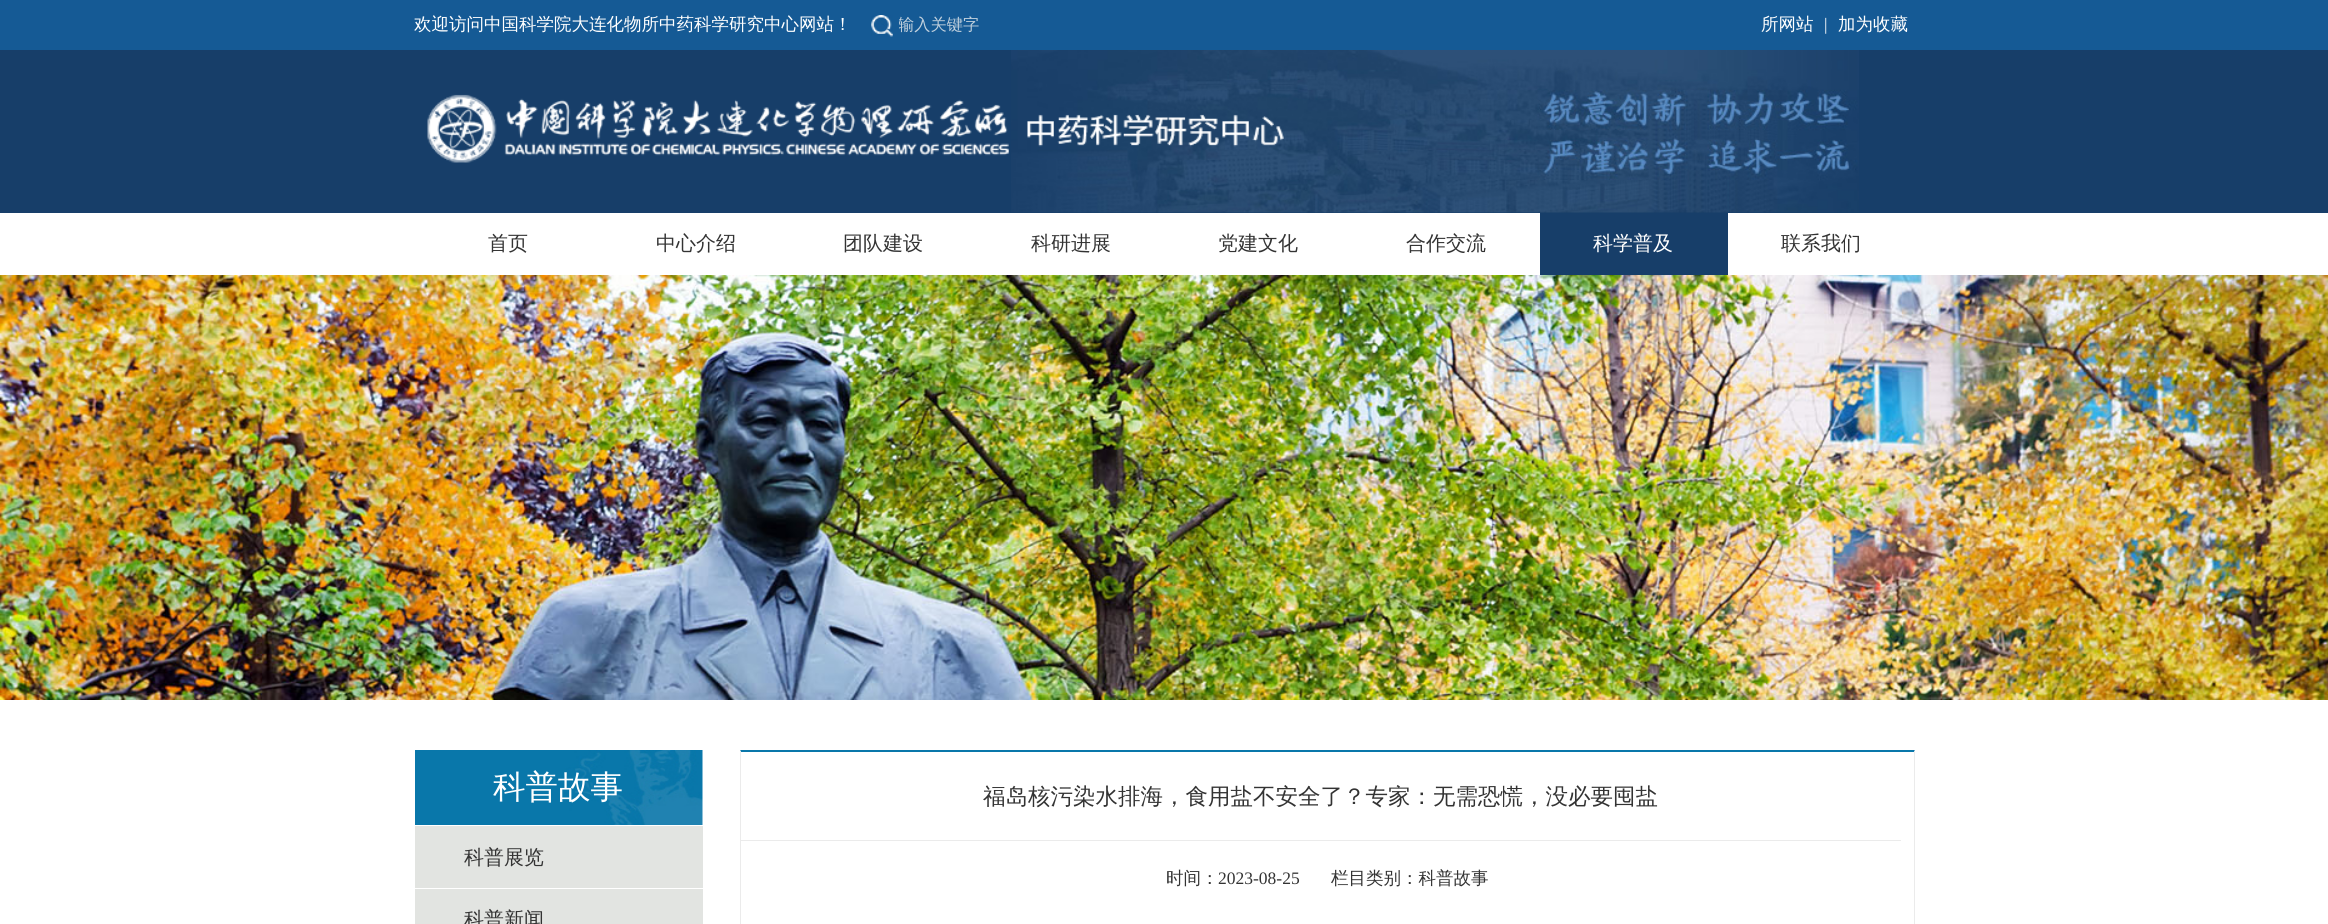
import math
import cairo



def draw_image(context, path, x, y, w, h):
    context.save()
    context.set_source_surface(cairo.ImageSurface.create_from_png(path), x, y)
    context.rectangle(x, y, w, h)
    context.fill()
    context.restore()


def draw(context):
    context.set_source_rgb(1, 1, 1)
    context.paint()
    context.set_source_rgb(21 / 255, 90 / 255, 149 / 255)
    context.rectangle(0, 0, 2328, 50)
    context.fill()
    draw_image(context, "images/1.png", 871, 15, 22, 22)
    draw_image(context, "images/2.png", 871, 21, 22, 16)
    context.set_source_rgb(23 / 255, 62 / 255, 105 / 255)
    context.rectangle(0, 50, 2328, 163)
    context.fill()
    draw_image(context, "images/3.png", 1011, 50, 848, 163)
    draw_image(context, "images/4.png", 427, 94, 857, 69)
    context.rectangle(1540, 213, 188, 62)
    context.fill()
    draw_image(context, "images/5.png", 0, 275, 2328, 425)
    draw_image(context, "images/6.png", 415, 750, 288, 75)
    context.set_source_rgb(226 / 255, 228 / 255, 225 / 255)
    context.rectangle(415, 826, 288, 62)
    context.fill()
    context.rectangle(415, 889, 288, 35)
    context.fill()
    context.set_source_rgb(9 / 255, 119 / 255, 170 / 255)
    context.new_path()
    context.move_to(740, 750)
    context.line_to(1915, 750)
    context.line_to(1914, 752)
    context.line_to(741, 752)
    context.close_path()
    context.fill()
    context.set_source_rgb(235 / 255, 235 / 255, 235 / 255)
    context.new_path()
    context.move_to(1915, 750)
    context.line_to(1915, 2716)
    context.line_to(1914, 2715)
    context.line_to(1914, 752)
    context.close_path()
    context.fill()
    context.new_path()
    context.move_to(740, 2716)
    context.line_to(740, 750)
    context.line_to(741, 752)
    context.line_to(741, 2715)
    context.close_path()
    context.fill()
    context.rectangle(741, 840, 1160, 1)
    context.fill()
    context.select_font_face("WenQuanYi Zen Hei Medium")
    context.set_font_size(17.5)
    context.set_source_rgb(1, 1, 1)
    context.move_to(414, 30)
    context.show_text("欢迎访问中国科学院大连化物所中药科学研究中心网站！")
    context.save()
    context.rectangle(899, 0, 87, 50)
    context.clip()
    context.set_font_size(16.25)
    context.set_source_rgb(192 / 255, 208 / 255, 221 / 255)
    context.move_to(898, 30)
    context.show_text("输入关键字")
    context.restore()
    context.move_to(1761, 30)
    context.show_text("所网站")
    context.select_font_face("Liberation Serif")
    context.move_to(1824, 30)
    context.show_text("|")
    context.select_font_face("WenQuanYi Zen Hei Medium")
    context.move_to(1838, 30)
    context.show_text("加为收藏")
    context.set_font_size(20)
    context.set_source_rgb(51 / 255, 51 / 255, 51 / 255)
    context.move_to(488, 250)
    context.show_text("首页")
    context.move_to(656, 250)
    context.show_text("中心介绍")
    context.move_to(843, 250)
    context.show_text("团队建设")
    context.move_to(1031, 250)
    context.show_text("科研进展")
    context.move_to(1218, 250)
    context.show_text("党建文化")
    context.move_to(1406, 250)
    context.show_text("合作交流")
    context.set_source_rgb(1, 1, 1)
    context.move_to(1593, 250)
    context.show_text("科学普及")
    context.set_source_rgb(51 / 255, 51 / 255, 51 / 255)
    context.move_to(1781, 250)
    context.show_text("联系我们")
    context.set_font_size(32.5)
    context.set_source_rgb(1, 1, 1)
    context.move_to(493, 798)
    context.show_text("科普故事")
    context.set_font_size(20)
    context.set_source_rgb(51 / 255, 51 / 255, 51 / 255)
    context.move_to(464, 864)
    context.show_text("科普展览")
    context.move_to(464, 926)
    context.show_text("科普新闻")
    context.set_font_size(22.5)
    context.move_to(983, 804)
    context.show_text("福岛核污染水排海，食用盐不安全了？专家：无需恐慌，没必要囤盐")
    context.set_font_size(17.5)
    context.move_to(1166, 884)
    context.show_text("时间：")
    context.select_font_face("Liberation Serif")
    context.move_to(1218, 884)
    context.show_text("2023-08-25")
    context.select_font_face("WenQuanYi Zen Hei Medium")
    context.move_to(1331, 884)
    context.show_text("栏目类别：科普故事")


surface = cairo.ImageSurface(cairo.Format.RGB24, 2328, 924)
context = cairo.Context(surface)
options = cairo.FontOptions()
options.set_hint_metrics(cairo.HintMetrics.OFF)
options.set_hint_style(cairo.HintStyle.NONE)
context.set_font_options(options)
context.set_miter_limit(4)
draw(context)
surface.write_to_png("out.png")
